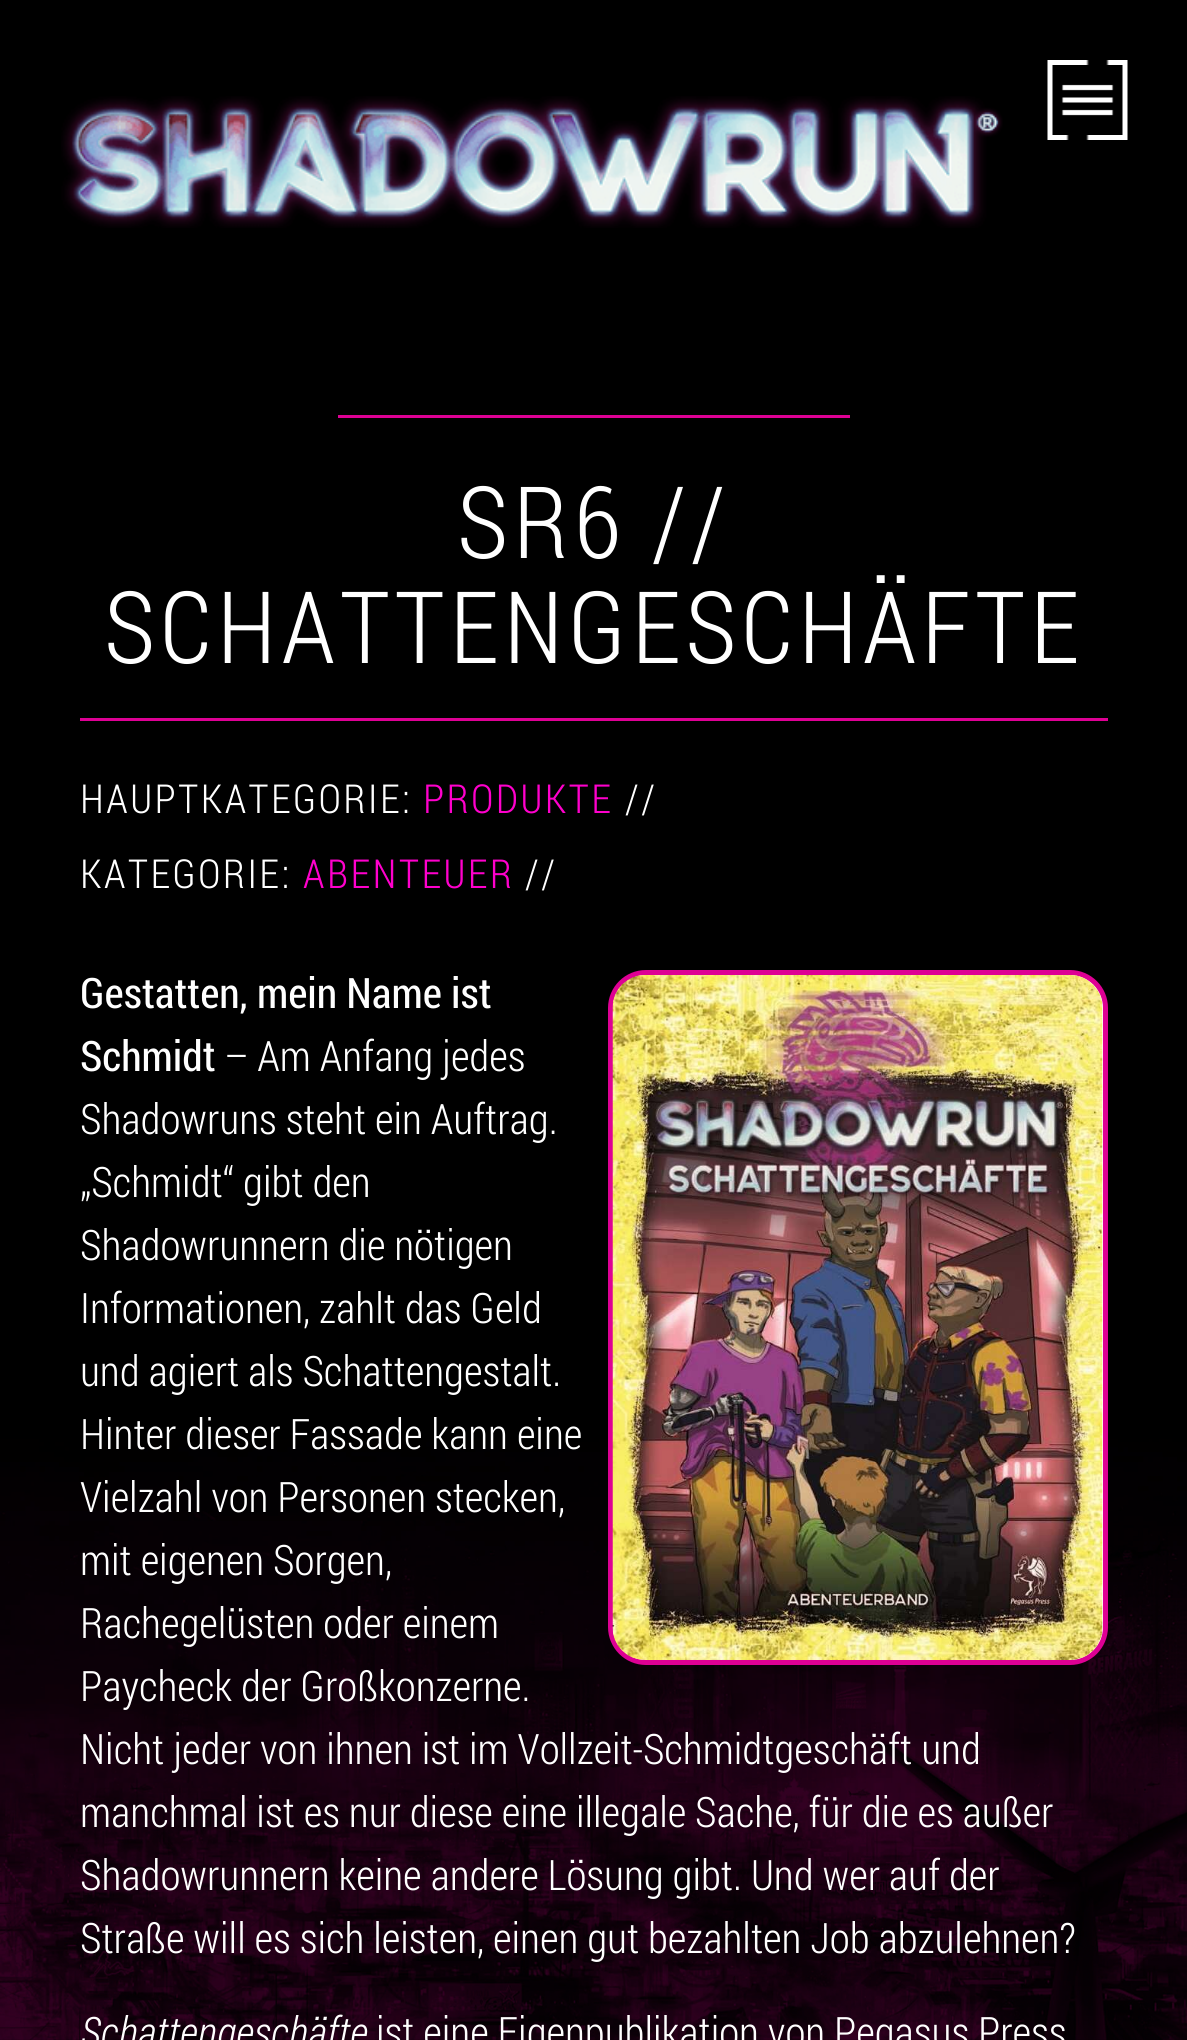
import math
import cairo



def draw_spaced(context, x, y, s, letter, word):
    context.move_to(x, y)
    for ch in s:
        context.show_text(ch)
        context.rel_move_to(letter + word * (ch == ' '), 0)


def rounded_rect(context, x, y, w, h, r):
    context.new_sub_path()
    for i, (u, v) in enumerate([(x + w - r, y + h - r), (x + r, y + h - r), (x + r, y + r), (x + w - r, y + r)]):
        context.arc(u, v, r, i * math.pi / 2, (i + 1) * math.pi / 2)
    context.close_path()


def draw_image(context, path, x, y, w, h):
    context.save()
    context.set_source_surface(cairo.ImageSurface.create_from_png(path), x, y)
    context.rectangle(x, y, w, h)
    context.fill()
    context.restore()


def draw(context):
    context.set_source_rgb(0, 0, 0)
    context.paint()
    draw_image(context, "images/1.png", 61, 96, 942, 132)
    draw_image(context, "images/2.png", 1047, 60, 81, 80)
    draw_image(context, "images/3.png", 0, 1439, 1187, 601)
    context.set_source_rgb(222 / 255, 0, 148 / 255)
    context.rectangle(338, 415, 512, 3)
    context.fill()
    context.rectangle(80, 718, 1028, 3)
    context.fill()
    context.set_source_rgb(1, 1, 1)
    rounded_rect(context, 610.5, 972.5, 495, 690, 35.5)
    context.fill_preserve()
    context.set_source_rgb(222 / 255, 0, 148 / 255)
    context.set_line_width(5)
    context.stroke()
    draw_image(context, "images/4.png", 612, 975, 491, 685)
    context.select_font_face("Roboto Condensed Light")
    context.set_font_size(100)
    context.set_source_rgb(1, 1, 1)
    draw_spaced(context, 457, 558, "SR6 //", 5, 0)
    draw_spaced(context, 104, 663, "SCHATTENGESCHÄFTE", 5, 0)
    context.set_font_size(40)
    draw_spaced(context, 80, 813, "HAUPTKATEGORIE:", 2.5, 0)
    context.set_source_rgb(1, 0, 204 / 255)
    draw_spaced(context, 423, 813, "PRODUKTE", 2.5, 0)
    context.set_source_rgb(1, 1, 1)
    draw_spaced(context, 625, 813, "//", 2.5, 0)
    draw_spaced(context, 80, 888, "KATEGORIE:", 2.5, 0)
    context.set_source_rgb(1, 0, 204 / 255)
    draw_spaced(context, 303, 888, "ABENTEUER", 2.5, 0)
    context.set_source_rgb(1, 1, 1)
    draw_spaced(context, 525, 888, "//", 2.5, 0)
    context.select_font_face("Roboto Condensed")
    context.set_font_size(42)
    context.move_to(80, 1008)
    context.show_text("Gestatten, mein Name ist")
    context.move_to(80, 1071)
    context.show_text("Schmidt")
    context.select_font_face("Roboto Condensed Light")
    context.move_to(224, 1071)
    context.show_text("– Am Anfang jedes")
    context.move_to(80, 1134)
    context.show_text("Shadowruns steht ein Auftrag.")
    context.move_to(80, 1197)
    context.show_text("„Schmidt“ gibt den")
    context.move_to(80, 1260)
    context.show_text("Shadowrunnern die nötigen")
    context.move_to(80, 1323)
    context.show_text("Informationen, zahlt das Geld")
    context.move_to(80, 1386)
    context.show_text("und agiert als Schattengestalt.")
    context.move_to(80, 1449)
    context.show_text("Hinter dieser Fassade kann eine")
    context.move_to(80, 1512)
    context.show_text("Vielzahl von Personen stecken,")
    context.move_to(80, 1575)
    context.show_text("mit eigenen Sorgen,")
    context.move_to(80, 1638)
    context.show_text("Rachegelüsten oder einem")
    context.move_to(80, 1701)
    context.show_text("Paycheck der Großkonzerne.")
    context.move_to(80, 1764)
    context.show_text("Nicht jeder von ihnen ist im Vollzeit-Schmidtgeschäft und")
    context.move_to(80, 1827)
    context.show_text("manchmal ist es nur diese eine illegale Sache, für die es außer")
    context.move_to(80, 1890)
    context.show_text("Shadowrunnern keine andere Lösung gibt. Und wer auf der")
    context.move_to(80, 1953)
    context.show_text("Straße will es sich leisten, einen gut bezahlten Job abzulehnen?")
    context.select_font_face("Roboto Condensed Light", cairo.FontSlant.ITALIC)
    context.move_to(80, 2047)
    context.show_text("Schattengeschäfte")
    context.select_font_face("Roboto Condensed Light")
    context.move_to(376, 2047)
    context.show_text("ist eine Eigenpublikation von Pegasus Press")


surface = cairo.ImageSurface(cairo.Format.RGB24, 1187, 2040)
context = cairo.Context(surface)
options = cairo.FontOptions()
options.set_hint_metrics(cairo.HintMetrics.OFF)
options.set_hint_style(cairo.HintStyle.NONE)
context.set_font_options(options)
context.set_miter_limit(4)
draw(context)
surface.write_to_png("out.png")
